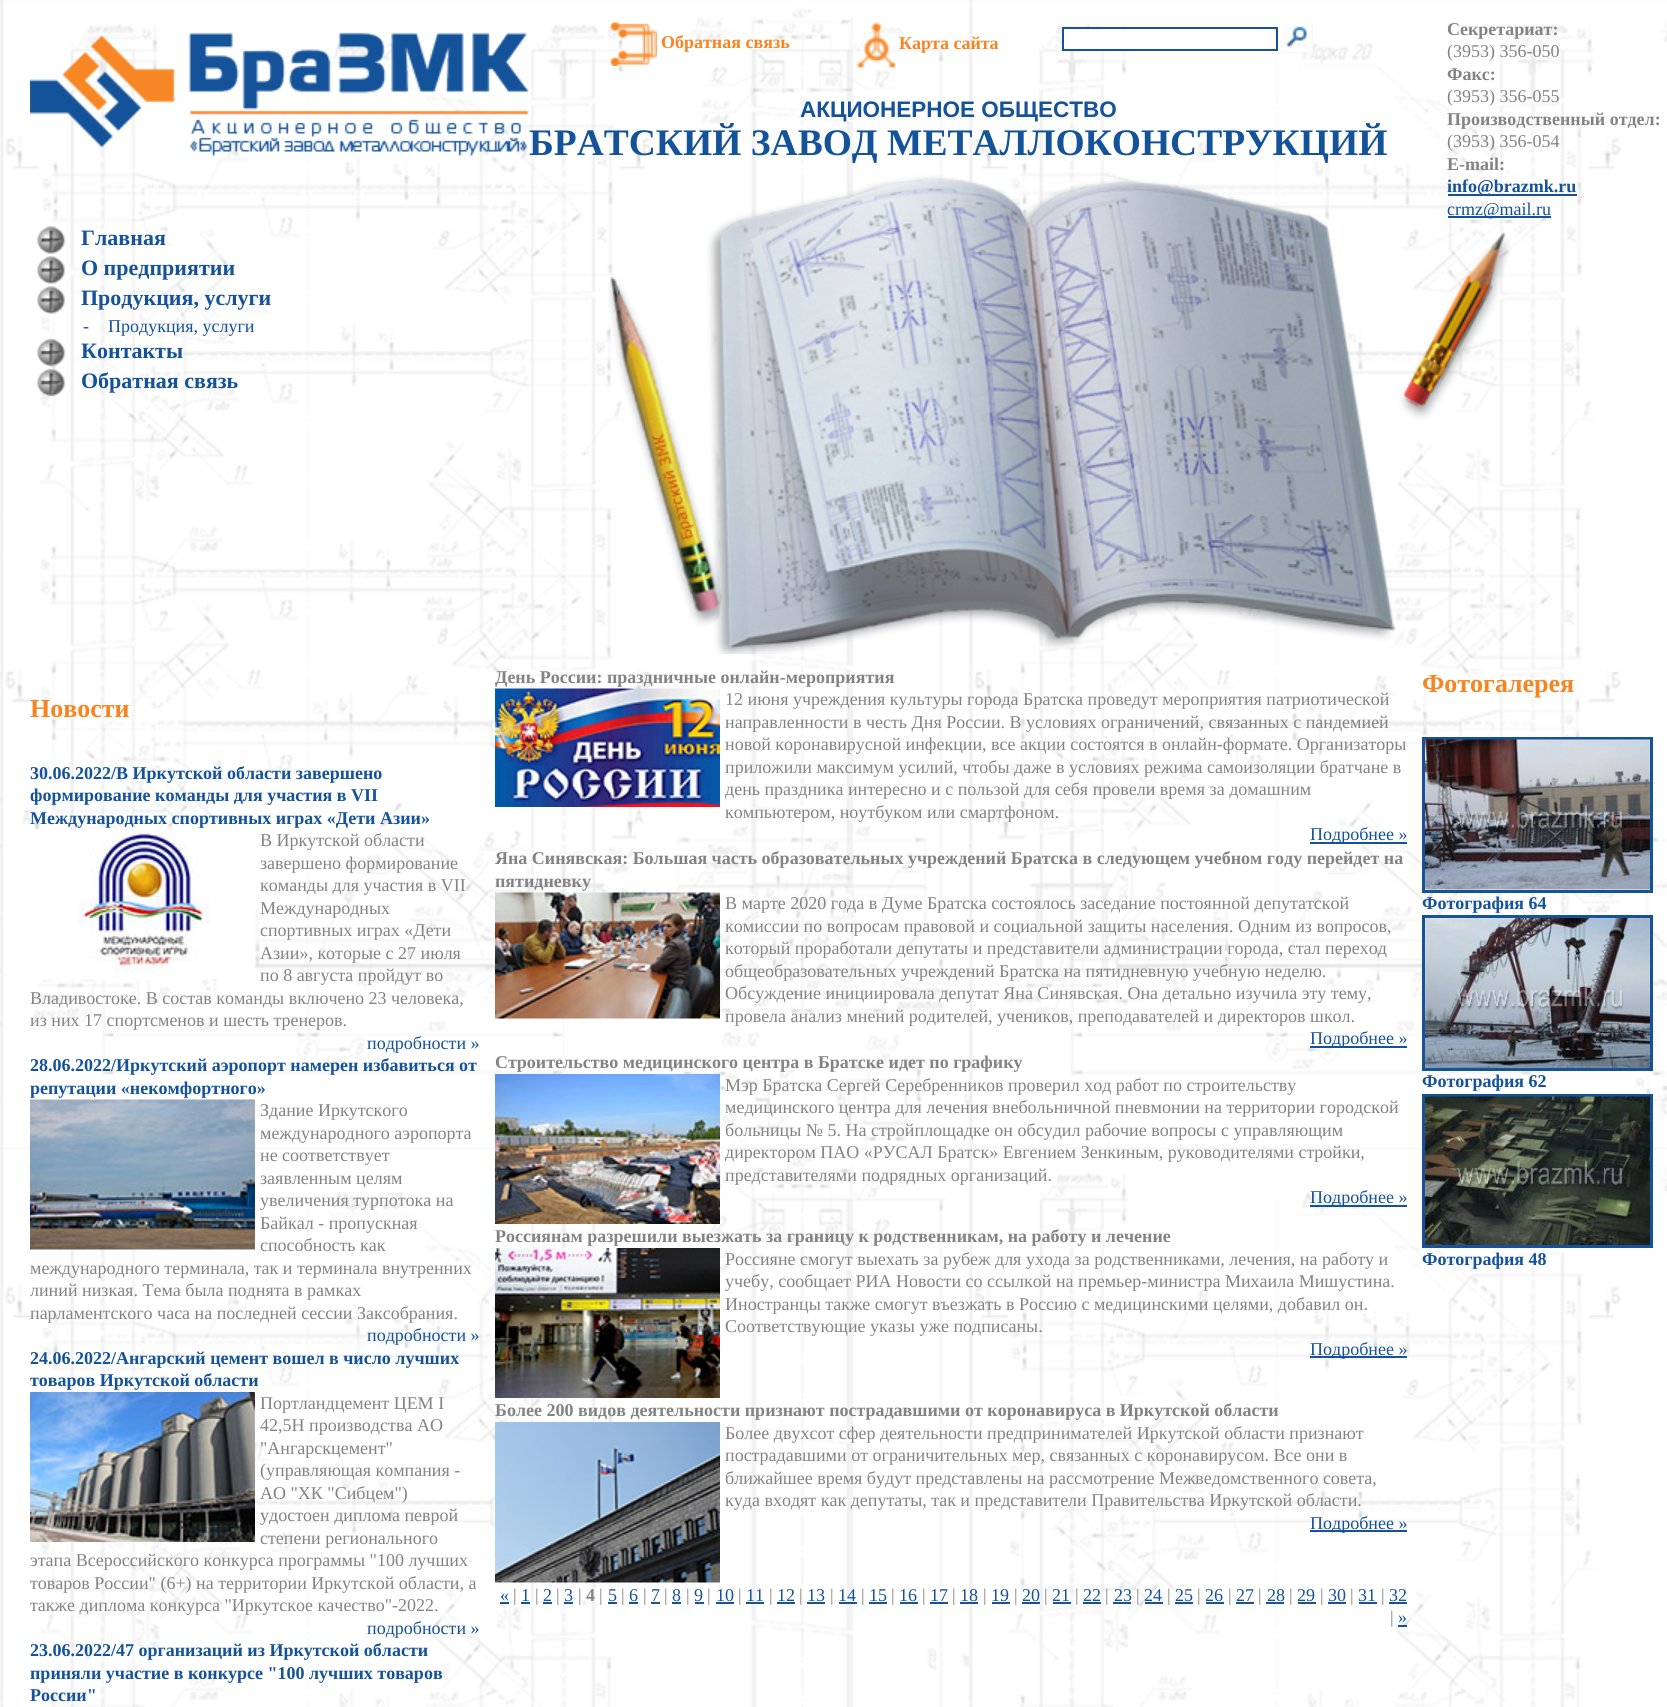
import math
import cairo



def draw_image(context, path, x, y, w, h):
    context.save()
    context.set_source_surface(cairo.ImageSurface.create_from_png(path), x, y)
    context.rectangle(x, y, w, h)
    context.fill()
    context.restore()


def draw(context):
    context.set_source_rgb(1, 1, 1)
    context.paint()
    draw_image(context, "images/1.png", 0, 0, 1667, 1707)
    draw_image(context, "images/13.png", 608, 175, 903, 479)
    context.set_source_rgb(20 / 255, 82 / 255, 153 / 255)
    context.rectangle(1448, 194, 129, 2)
    context.fill()
    context.rectangle(1448, 216, 103, 2)
    context.fill()
    draw_image(context, "images/2.png", 30, 32, 499, 125)
    draw_image(context, "images/3.png", 37, 226, 28, 28)
    draw_image(context, "images/3.png", 37, 256, 28, 28)
    draw_image(context, "images/4.png", 37, 286, 28, 28)
    draw_image(context, "images/5.png", 37, 338, 28, 29)
    draw_image(context, "images/6.png", 37, 368, 28, 29)
    draw_image(context, "images/7.png", 30, 829, 225, 151)
    draw_image(context, "images/8.png", 30, 1099, 225, 151)
    draw_image(context, "images/9.png", 30, 1392, 225, 150)
    draw_image(context, "images/10.png", 610, 22, 47, 44)
    draw_image(context, "images/11.png", 856, 22, 40, 46)
    context.set_source_rgb(1, 1, 1)
    context.rectangle(1064, 29, 63, 20)
    context.fill()
    context.rectangle(1063, 28, 214, 22)
    context.set_source_rgb(20 / 255, 82 / 255, 153 / 255)
    context.stroke()
    context.set_source_rgb(239 / 255, 239 / 255, 239 / 255)
    context.rectangle(1283, 23, 30, 30)
    context.fill()
    draw_image(context, "images/12.png", 1282, 22, 31, 31)
    draw_image(context, "images/14.png", 495, 688, 225, 119)
    context.set_source_rgb(20 / 255, 82 / 255, 153 / 255)
    context.rectangle(1310, 842, 97, 2)
    context.fill()
    draw_image(context, "images/15.png", 495, 892, 225, 127)
    context.rectangle(1310, 1046, 97, 2)
    context.fill()
    draw_image(context, "images/16.png", 495, 1074, 225, 150)
    context.rectangle(1310, 1205, 97, 2)
    context.fill()
    draw_image(context, "images/17.png", 495, 1248, 225, 150)
    context.rectangle(1310, 1356, 97, 2)
    context.fill()
    draw_image(context, "images/18.png", 495, 1422, 225, 161)
    context.rectangle(1310, 1530, 97, 2)
    context.fill()
    context.rectangle(500, 1602, 9, 2)
    context.fill()
    context.rectangle(521, 1602, 9, 2)
    context.fill()
    context.rectangle(543, 1602, 9, 2)
    context.fill()
    context.rectangle(564, 1602, 9, 2)
    context.fill()
    context.rectangle(608, 1602, 9, 2)
    context.fill()
    context.rectangle(629, 1602, 9, 2)
    context.fill()
    context.rectangle(651, 1602, 9, 2)
    context.fill()
    context.rectangle(672, 1602, 9, 2)
    context.fill()
    context.rectangle(695, 1602, 9, 2)
    context.fill()
    context.rectangle(716, 1602, 18, 2)
    context.fill()
    context.rectangle(746, 1602, 18, 2)
    context.fill()
    context.rectangle(777, 1602, 18, 2)
    context.fill()
    context.rectangle(807, 1602, 18, 2)
    context.fill()
    context.rectangle(839, 1602, 18, 2)
    context.fill()
    context.rectangle(869, 1602, 18, 2)
    context.fill()
    context.rectangle(900, 1602, 18, 2)
    context.fill()
    context.rectangle(930, 1602, 18, 2)
    context.fill()
    context.rectangle(960, 1602, 18, 2)
    context.fill()
    context.rectangle(992, 1602, 18, 2)
    context.fill()
    context.rectangle(1022, 1602, 18, 2)
    context.fill()
    context.rectangle(1053, 1602, 18, 2)
    context.fill()
    context.rectangle(1083, 1602, 18, 2)
    context.fill()
    context.rectangle(1113, 1602, 18, 2)
    context.fill()
    context.rectangle(1145, 1602, 18, 2)
    context.fill()
    context.rectangle(1175, 1602, 18, 2)
    context.fill()
    context.rectangle(1206, 1602, 18, 2)
    context.fill()
    context.rectangle(1236, 1602, 18, 2)
    context.fill()
    context.rectangle(1266, 1602, 18, 2)
    context.fill()
    context.rectangle(1298, 1602, 18, 2)
    context.fill()
    context.rectangle(1328, 1602, 18, 2)
    context.fill()
    context.rectangle(1359, 1602, 18, 2)
    context.fill()
    context.rectangle(1389, 1602, 18, 2)
    context.fill()
    context.rectangle(1398, 1625, 9, 2)
    context.fill()
    context.rectangle(1423.5, 738.5, 228, 153)
    context.set_line_width(3)
    context.stroke()
    draw_image(context, "images/19.png", 1425, 739, 225, 151)
    context.rectangle(1423.5, 916.5, 228, 153)
    context.stroke()
    draw_image(context, "images/20.png", 1425, 918, 225, 150)
    context.rectangle(1423.5, 1095.5, 228, 151)
    context.stroke()
    draw_image(context, "images/21.png", 1425, 1096, 225, 149)
    context.select_font_face("Liberation Serif", cairo.FontSlant.NORMAL, cairo.FontWeight.BOLD)
    context.set_font_size(18)
    context.set_source_rgb(132 / 255, 131 / 255, 131 / 255)
    context.move_to(1447, 35)
    context.show_text("Секретариат:")
    context.select_font_face("Liberation Serif")
    context.move_to(1447, 57)
    context.show_text("(3953) 356-050")
    context.select_font_face("Liberation Serif", cairo.FontSlant.NORMAL, cairo.FontWeight.BOLD)
    context.move_to(1447, 80)
    context.show_text("Факс:")
    context.select_font_face("Liberation Serif")
    context.move_to(1447, 102)
    context.show_text("(3953) 356-055")
    context.select_font_face("Liberation Serif", cairo.FontSlant.NORMAL, cairo.FontWeight.BOLD)
    context.move_to(1447, 125)
    context.show_text("Производственный отдел:")
    context.select_font_face("Liberation Serif")
    context.move_to(1447, 147)
    context.show_text("(3953) 356-054")
    context.select_font_face("Liberation Serif", cairo.FontSlant.NORMAL, cairo.FontWeight.BOLD)
    context.move_to(1447, 170)
    context.show_text("E-mail:")
    context.set_source_rgb(20 / 255, 82 / 255, 153 / 255)
    context.move_to(1447, 192)
    context.show_text("info@brazmk.ru")
    context.select_font_face("Liberation Serif")
    context.move_to(1447, 215)
    context.show_text("crmz@mail.ru")
    context.select_font_face("Liberation Serif", cairo.FontSlant.NORMAL, cairo.FontWeight.BOLD)
    context.set_font_size(22)
    context.move_to(81, 245)
    context.show_text("Главная")
    context.move_to(81, 275)
    context.show_text("О предприятии")
    context.move_to(81, 305)
    context.show_text("Продукция, услуги")
    context.select_font_face("Liberation Serif")
    context.set_font_size(18)
    context.move_to(83, 332)
    context.show_text("-")
    context.move_to(108, 332)
    context.show_text("Продукция, услуги")
    context.select_font_face("Liberation Serif", cairo.FontSlant.NORMAL, cairo.FontWeight.BOLD)
    context.set_font_size(22)
    context.move_to(81, 358)
    context.show_text("Контакты")
    context.move_to(81, 388)
    context.show_text("Обратная связь")
    context.set_font_size(26)
    context.set_source_rgb(247 / 255, 132 / 255, 32 / 255)
    context.move_to(30, 717)
    context.show_text("Новости")
    context.set_font_size(18)
    context.set_source_rgb(20 / 255, 82 / 255, 153 / 255)
    context.move_to(30, 779)
    context.show_text("30.06.2022/В Иркутской области завершено")
    context.move_to(30, 801)
    context.show_text("формирование команды для участия в VII")
    context.move_to(30, 824)
    context.show_text("Международных спортивных играх «Дети Азии»")
    context.select_font_face("Liberation Serif")
    context.set_source_rgb(132 / 255, 131 / 255, 131 / 255)
    context.move_to(260, 846)
    context.show_text("В Иркутской области")
    context.move_to(260, 869)
    context.show_text("завершено формирование")
    context.move_to(260, 891)
    context.show_text("команды для участия в VII")
    context.move_to(260, 914)
    context.show_text("Международных")
    context.move_to(260, 936)
    context.show_text("спортивных играх «Дети")
    context.move_to(260, 959)
    context.show_text("Азии», которые с 27 июля")
    context.move_to(260, 981)
    context.show_text("по 8 августа пройдут во")
    context.move_to(30, 1004)
    context.show_text("Владивостоке. В состав команды включено 23 человека,")
    context.move_to(30, 1026)
    context.show_text("из них 17 спортсменов и шесть тренеров.")
    context.set_source_rgb(20 / 255, 82 / 255, 153 / 255)
    context.move_to(367, 1049)
    context.show_text("подробности »")
    context.select_font_face("Liberation Serif", cairo.FontSlant.NORMAL, cairo.FontWeight.BOLD)
    context.move_to(30, 1071)
    context.show_text("28.06.2022/Иркутский аэропорт намерен избавиться от")
    context.move_to(30, 1094)
    context.show_text("репутации «некомфортного»")
    context.select_font_face("Liberation Serif")
    context.set_source_rgb(132 / 255, 131 / 255, 131 / 255)
    context.move_to(260, 1116)
    context.show_text("Здание Иркутского")
    context.move_to(260, 1139)
    context.show_text("международного аэропорта")
    context.move_to(260, 1161)
    context.show_text("не соответствует")
    context.move_to(260, 1184)
    context.show_text("заявленным целям")
    context.move_to(260, 1206)
    context.show_text("увеличения турпотока на")
    context.move_to(260, 1229)
    context.show_text("Байкал - пропускная")
    context.move_to(260, 1251)
    context.show_text("способность как")
    context.move_to(30, 1274)
    context.show_text("международного терминала, так и терминала внутренних")
    context.move_to(30, 1296)
    context.show_text("линий низкая. Тема была поднята в рамках")
    context.move_to(30, 1319)
    context.show_text("парламентского часа на последней сессии Заксобрания.")
    context.set_source_rgb(20 / 255, 82 / 255, 153 / 255)
    context.move_to(367, 1341)
    context.show_text("подробности »")
    context.select_font_face("Liberation Serif", cairo.FontSlant.NORMAL, cairo.FontWeight.BOLD)
    context.move_to(30, 1364)
    context.show_text("24.06.2022/Ангарский цемент вошел в число лучших")
    context.move_to(30, 1386)
    context.show_text("товаров Иркутской области")
    context.select_font_face("Liberation Serif")
    context.set_source_rgb(132 / 255, 131 / 255, 131 / 255)
    context.move_to(260, 1409)
    context.show_text("Портландцемент ЦЕМ I")
    context.move_to(260, 1431)
    context.show_text("42,5Н производства АО")
    context.move_to(260, 1454)
    context.show_text("\"Ангарскцемент\"")
    context.move_to(260, 1476)
    context.show_text("(управляющая компания -")
    context.move_to(260, 1499)
    context.show_text("АО \"ХК \"Сибцем\")")
    context.move_to(260, 1521)
    context.show_text("удостоен диплома певрой")
    context.move_to(260, 1544)
    context.show_text("степени регионального")
    context.move_to(30, 1566)
    context.show_text("этапа Всероссийского конкурса программы \"100 лучших")
    context.move_to(30, 1589)
    context.show_text("товаров России\" (6+) на территории Иркутской области, а")
    context.move_to(30, 1611)
    context.show_text("также диплома конкурса \"Иркутское качество\"-2022.")
    context.set_source_rgb(20 / 255, 82 / 255, 153 / 255)
    context.move_to(367, 1634)
    context.show_text("подробности »")
    context.select_font_face("Liberation Serif", cairo.FontSlant.NORMAL, cairo.FontWeight.BOLD)
    context.move_to(30, 1656)
    context.show_text("23.06.2022/47 организаций из Иркутской области")
    context.move_to(30, 1679)
    context.show_text("приняли участие в конкурсе \"100 лучших товаров")
    context.move_to(30, 1701)
    context.show_text("России\"")
    context.set_source_rgb(247 / 255, 132 / 255, 32 / 255)
    context.move_to(661, 48)
    context.show_text("Обратная связь")
    context.move_to(899, 49)
    context.show_text("Карта сайта")
    context.select_font_face("Liberation Sans", cairo.FontSlant.NORMAL, cairo.FontWeight.BOLD)
    context.set_font_size(22.5)
    context.set_source_rgb(20 / 255, 82 / 255, 153 / 255)
    context.move_to(800, 117)
    context.show_text("АКЦИОНЕРНОЕ ОБЩЕСТВО")
    context.select_font_face("Liberation Serif", cairo.FontSlant.NORMAL, cairo.FontWeight.BOLD)
    context.set_font_size(37.5)
    context.move_to(529, 155)
    context.show_text("БРАТСКИЙ ЗАВОД МЕТАЛЛОКОНСТРУКЦИЙ")
    context.set_font_size(18)
    context.set_source_rgb(132 / 255, 131 / 255, 131 / 255)
    context.move_to(495, 683)
    context.show_text("День России: праздничные онлайн-мероприятия")
    context.select_font_face("Liberation Serif")
    context.move_to(725, 705)
    context.show_text("12 июня учреждения культуры города Братска проведут мероприятия патриотической")
    context.move_to(725, 728)
    context.show_text("направленности в честь Дня России. В условиях ограничений, связанных с пандемией")
    context.move_to(725, 750)
    context.show_text("новой коронавирусной инфекции, все акции состоятся в онлайн-формате. Организаторы")
    context.move_to(725, 773)
    context.show_text("приложили максимум усилий, чтобы даже в условиях режима самоизоляции братчане в")
    context.move_to(725, 795)
    context.show_text("день праздника интересно и с пользой для себя провели время за домашним")
    context.move_to(725, 818)
    context.show_text("компьютером, ноутбуком или смартфоном.")
    context.set_source_rgb(20 / 255, 82 / 255, 153 / 255)
    context.move_to(1310, 840)
    context.show_text("Подробнее »")
    context.select_font_face("Liberation Serif", cairo.FontSlant.NORMAL, cairo.FontWeight.BOLD)
    context.set_source_rgb(132 / 255, 131 / 255, 131 / 255)
    context.move_to(495, 864)
    context.show_text("Яна Синявская: Большая часть образовательных учреждений Братска в следующем учебном году перейдет на")
    context.move_to(495, 887)
    context.show_text("пятидневку")
    context.select_font_face("Liberation Serif")
    context.move_to(725, 909)
    context.show_text("В марте 2020 года в Думе Братска состоялось заседание постоянной депутатской")
    context.move_to(725, 932)
    context.show_text("комиссии по вопросам правовой и социальной защиты населения. Одним из вопросов,")
    context.move_to(725, 954)
    context.show_text("который проработали депутаты и представители администрации города, стал переход")
    context.move_to(725, 977)
    context.show_text("общеобразовательных учреждений Братска на пятидневную учебную неделю.")
    context.move_to(725, 999)
    context.show_text("Обсуждение инициировала депутат Яна Синявская. Она детально изучила эту тему,")
    context.move_to(725, 1022)
    context.show_text("провела анализ мнений родителей, учеников, преподавателей и директоров школ.")
    context.set_source_rgb(20 / 255, 82 / 255, 153 / 255)
    context.move_to(1310, 1044)
    context.show_text("Подробнее »")
    context.select_font_face("Liberation Serif", cairo.FontSlant.NORMAL, cairo.FontWeight.BOLD)
    context.set_source_rgb(132 / 255, 131 / 255, 131 / 255)
    context.move_to(495, 1068)
    context.show_text("Строительство медицинского центра в Братске идет по графику")
    context.select_font_face("Liberation Serif")
    context.move_to(725, 1091)
    context.show_text("Мэр Братска Сергей Серебренников проверил ход работ по строительству")
    context.move_to(725, 1113)
    context.show_text("медицинского центра для лечения внебольничной пневмонии на территории городской")
    context.move_to(725, 1136)
    context.show_text("больницы № 5. На стройплощадке он обсудил рабочие вопросы с управляющим")
    context.move_to(725, 1158)
    context.show_text("директором ПАО «РУСАЛ Братск» Евгением Зенкиным, руководителями стройки,")
    context.move_to(725, 1181)
    context.show_text("представителями подрядных организаций.")
    context.set_source_rgb(20 / 255, 82 / 255, 153 / 255)
    context.move_to(1310, 1203)
    context.show_text("Подробнее »")
    context.select_font_face("Liberation Serif", cairo.FontSlant.NORMAL, cairo.FontWeight.BOLD)
    context.set_source_rgb(132 / 255, 131 / 255, 131 / 255)
    context.move_to(495, 1242)
    context.show_text("Россиянам разрешили выезжать за границу к родственникам, на работу и лечение")
    context.select_font_face("Liberation Serif")
    context.move_to(725, 1265)
    context.show_text("Россияне смогут выехать за рубеж для ухода за родственниками, лечения, на работу и")
    context.move_to(725, 1287)
    context.show_text("учебу, сообщает РИА Новости со ссылкой на премьер-министра Михаила Мишустина.")
    context.move_to(725, 1310)
    context.show_text("Иностранцы также смогут въезжать в Россию с медицинскими целями, добавил он.")
    context.move_to(725, 1332)
    context.show_text("Соответствующие указы уже подписаны.")
    context.set_source_rgb(20 / 255, 82 / 255, 153 / 255)
    context.move_to(1310, 1355)
    context.show_text("Подробнее »")
    context.select_font_face("Liberation Serif", cairo.FontSlant.NORMAL, cairo.FontWeight.BOLD)
    context.set_source_rgb(132 / 255, 131 / 255, 131 / 255)
    context.move_to(495, 1416)
    context.show_text("Более 200 видов деятельности признают пострадавшими от коронавируса в Иркутской области")
    context.select_font_face("Liberation Serif")
    context.move_to(725, 1439)
    context.show_text("Более двухсот сфер деятельности предпринимателей Иркутской области признают")
    context.move_to(725, 1461)
    context.show_text("пострадавшими от ограничительных мер, связанных с коронавирусом. Все они в")
    context.move_to(725, 1484)
    context.show_text("ближайшее время будут представлены на рассмотрение Межведомственного совета,")
    context.move_to(725, 1506)
    context.show_text("куда входят как депутаты, так и представители Правительства Иркутской области.")
    context.set_source_rgb(20 / 255, 82 / 255, 153 / 255)
    context.move_to(1310, 1529)
    context.show_text("Подробнее »")
    context.move_to(500, 1601)
    context.show_text("«")
    context.set_source_rgb(132 / 255, 131 / 255, 131 / 255)
    context.move_to(513, 1601)
    context.show_text("|")
    context.set_source_rgb(20 / 255, 82 / 255, 153 / 255)
    context.move_to(521, 1601)
    context.show_text("1")
    context.set_source_rgb(132 / 255, 131 / 255, 131 / 255)
    context.move_to(535, 1601)
    context.show_text("|")
    context.set_source_rgb(20 / 255, 82 / 255, 153 / 255)
    context.move_to(543, 1601)
    context.show_text("2")
    context.set_source_rgb(132 / 255, 131 / 255, 131 / 255)
    context.move_to(556, 1601)
    context.show_text("|")
    context.set_source_rgb(20 / 255, 82 / 255, 153 / 255)
    context.move_to(564, 1601)
    context.show_text("3")
    context.set_source_rgb(132 / 255, 131 / 255, 131 / 255)
    context.move_to(578, 1601)
    context.show_text("|")
    context.select_font_face("Liberation Serif", cairo.FontSlant.NORMAL, cairo.FontWeight.BOLD)
    context.move_to(586, 1601)
    context.show_text("4")
    context.select_font_face("Liberation Serif")
    context.move_to(599, 1601)
    context.show_text("|")
    context.set_source_rgb(20 / 255, 82 / 255, 153 / 255)
    context.move_to(608, 1601)
    context.show_text("5")
    context.set_source_rgb(132 / 255, 131 / 255, 131 / 255)
    context.move_to(621, 1601)
    context.show_text("|")
    context.set_source_rgb(20 / 255, 82 / 255, 153 / 255)
    context.move_to(629, 1601)
    context.show_text("6")
    context.set_source_rgb(132 / 255, 131 / 255, 131 / 255)
    context.move_to(643, 1601)
    context.show_text("|")
    context.set_source_rgb(20 / 255, 82 / 255, 153 / 255)
    context.move_to(651, 1601)
    context.show_text("7")
    context.set_source_rgb(132 / 255, 131 / 255, 131 / 255)
    context.move_to(664, 1601)
    context.show_text("|")
    context.set_source_rgb(20 / 255, 82 / 255, 153 / 255)
    context.move_to(672, 1601)
    context.show_text("8")
    context.set_source_rgb(132 / 255, 131 / 255, 131 / 255)
    context.move_to(686, 1601)
    context.show_text("|")
    context.set_source_rgb(20 / 255, 82 / 255, 153 / 255)
    context.move_to(694, 1601)
    context.show_text("9")
    context.set_source_rgb(132 / 255, 131 / 255, 131 / 255)
    context.move_to(707, 1601)
    context.show_text("|")
    context.set_source_rgb(20 / 255, 82 / 255, 153 / 255)
    context.move_to(716, 1601)
    context.show_text("10")
    context.set_source_rgb(132 / 255, 131 / 255, 131 / 255)
    context.move_to(738, 1601)
    context.show_text("|")
    context.set_source_rgb(20 / 255, 82 / 255, 153 / 255)
    context.move_to(746, 1601)
    context.show_text("11")
    context.set_source_rgb(132 / 255, 131 / 255, 131 / 255)
    context.move_to(769, 1601)
    context.show_text("|")
    context.set_source_rgb(20 / 255, 82 / 255, 153 / 255)
    context.move_to(777, 1601)
    context.show_text("12")
    context.set_source_rgb(132 / 255, 131 / 255, 131 / 255)
    context.move_to(799, 1601)
    context.show_text("|")
    context.set_source_rgb(20 / 255, 82 / 255, 153 / 255)
    context.move_to(807, 1601)
    context.show_text("13")
    context.set_source_rgb(132 / 255, 131 / 255, 131 / 255)
    context.move_to(830, 1601)
    context.show_text("|")
    context.set_source_rgb(20 / 255, 82 / 255, 153 / 255)
    context.move_to(838, 1601)
    context.show_text("14")
    context.set_source_rgb(132 / 255, 131 / 255, 131 / 255)
    context.move_to(861, 1601)
    context.show_text("|")
    context.set_source_rgb(20 / 255, 82 / 255, 153 / 255)
    context.move_to(869, 1601)
    context.show_text("15")
    context.set_source_rgb(132 / 255, 131 / 255, 131 / 255)
    context.move_to(891, 1601)
    context.show_text("|")
    context.set_source_rgb(20 / 255, 82 / 255, 153 / 255)
    context.move_to(899, 1601)
    context.show_text("16")
    context.set_source_rgb(132 / 255, 131 / 255, 131 / 255)
    context.move_to(922, 1601)
    context.show_text("|")
    context.set_source_rgb(20 / 255, 82 / 255, 153 / 255)
    context.move_to(930, 1601)
    context.show_text("17")
    context.set_source_rgb(132 / 255, 131 / 255, 131 / 255)
    context.move_to(952, 1601)
    context.show_text("|")
    context.set_source_rgb(20 / 255, 82 / 255, 153 / 255)
    context.move_to(960, 1601)
    context.show_text("18")
    context.set_source_rgb(132 / 255, 131 / 255, 131 / 255)
    context.move_to(983, 1601)
    context.show_text("|")
    context.set_source_rgb(20 / 255, 82 / 255, 153 / 255)
    context.move_to(991, 1601)
    context.show_text("19")
    context.set_source_rgb(132 / 255, 131 / 255, 131 / 255)
    context.move_to(1014, 1601)
    context.show_text("|")
    context.set_source_rgb(20 / 255, 82 / 255, 153 / 255)
    context.move_to(1022, 1601)
    context.show_text("20")
    context.set_source_rgb(132 / 255, 131 / 255, 131 / 255)
    context.move_to(1044, 1601)
    context.show_text("|")
    context.set_source_rgb(20 / 255, 82 / 255, 153 / 255)
    context.move_to(1052, 1601)
    context.show_text("21")
    context.set_source_rgb(132 / 255, 131 / 255, 131 / 255)
    context.move_to(1075, 1601)
    context.show_text("|")
    context.set_source_rgb(20 / 255, 82 / 255, 153 / 255)
    context.move_to(1083, 1601)
    context.show_text("22")
    context.set_source_rgb(132 / 255, 131 / 255, 131 / 255)
    context.move_to(1105, 1601)
    context.show_text("|")
    context.set_source_rgb(20 / 255, 82 / 255, 153 / 255)
    context.move_to(1114, 1601)
    context.show_text("23")
    context.set_source_rgb(132 / 255, 131 / 255, 131 / 255)
    context.move_to(1136, 1601)
    context.show_text("|")
    context.set_source_rgb(20 / 255, 82 / 255, 153 / 255)
    context.move_to(1144, 1601)
    context.show_text("24")
    context.set_source_rgb(132 / 255, 131 / 255, 131 / 255)
    context.move_to(1167, 1601)
    context.show_text("|")
    context.set_source_rgb(20 / 255, 82 / 255, 153 / 255)
    context.move_to(1175, 1601)
    context.show_text("25")
    context.set_source_rgb(132 / 255, 131 / 255, 131 / 255)
    context.move_to(1197, 1601)
    context.show_text("|")
    context.set_source_rgb(20 / 255, 82 / 255, 153 / 255)
    context.move_to(1205, 1601)
    context.show_text("26")
    context.set_source_rgb(132 / 255, 131 / 255, 131 / 255)
    context.move_to(1228, 1601)
    context.show_text("|")
    context.set_source_rgb(20 / 255, 82 / 255, 153 / 255)
    context.move_to(1236, 1601)
    context.show_text("27")
    context.set_source_rgb(132 / 255, 131 / 255, 131 / 255)
    context.move_to(1258, 1601)
    context.show_text("|")
    context.set_source_rgb(20 / 255, 82 / 255, 153 / 255)
    context.move_to(1267, 1601)
    context.show_text("28")
    context.set_source_rgb(132 / 255, 131 / 255, 131 / 255)
    context.move_to(1289, 1601)
    context.show_text("|")
    context.set_source_rgb(20 / 255, 82 / 255, 153 / 255)
    context.move_to(1297, 1601)
    context.show_text("29")
    context.set_source_rgb(132 / 255, 131 / 255, 131 / 255)
    context.move_to(1320, 1601)
    context.show_text("|")
    context.set_source_rgb(20 / 255, 82 / 255, 153 / 255)
    context.move_to(1328, 1601)
    context.show_text("30")
    context.set_source_rgb(132 / 255, 131 / 255, 131 / 255)
    context.move_to(1350, 1601)
    context.show_text("|")
    context.set_source_rgb(20 / 255, 82 / 255, 153 / 255)
    context.move_to(1358, 1601)
    context.show_text("31")
    context.set_source_rgb(132 / 255, 131 / 255, 131 / 255)
    context.move_to(1381, 1601)
    context.show_text("|")
    context.set_source_rgb(20 / 255, 82 / 255, 153 / 255)
    context.move_to(1389, 1601)
    context.show_text("32")
    context.set_source_rgb(132 / 255, 131 / 255, 131 / 255)
    context.move_to(1390, 1623)
    context.show_text("|")
    context.set_source_rgb(20 / 255, 82 / 255, 153 / 255)
    context.move_to(1398, 1623)
    context.show_text("»")
    context.select_font_face("Liberation Serif", cairo.FontSlant.NORMAL, cairo.FontWeight.BOLD)
    context.set_font_size(26)
    context.set_source_rgb(247 / 255, 132 / 255, 32 / 255)
    context.move_to(1422, 692)
    context.show_text("Фотогалерея")
    context.set_font_size(18)
    context.set_source_rgb(20 / 255, 82 / 255, 153 / 255)
    context.move_to(1422, 909)
    context.show_text("Фотография 64")
    context.move_to(1422, 1087)
    context.show_text("Фотография 62")
    context.move_to(1422, 1265)
    context.show_text("Фотография 48")


surface = cairo.ImageSurface(cairo.Format.RGB24, 1667, 1707)
context = cairo.Context(surface)
options = cairo.FontOptions()
options.set_hint_metrics(cairo.HintMetrics.OFF)
options.set_hint_style(cairo.HintStyle.NONE)
context.set_font_options(options)
context.set_miter_limit(4)
draw(context)
surface.write_to_png("out.png")
